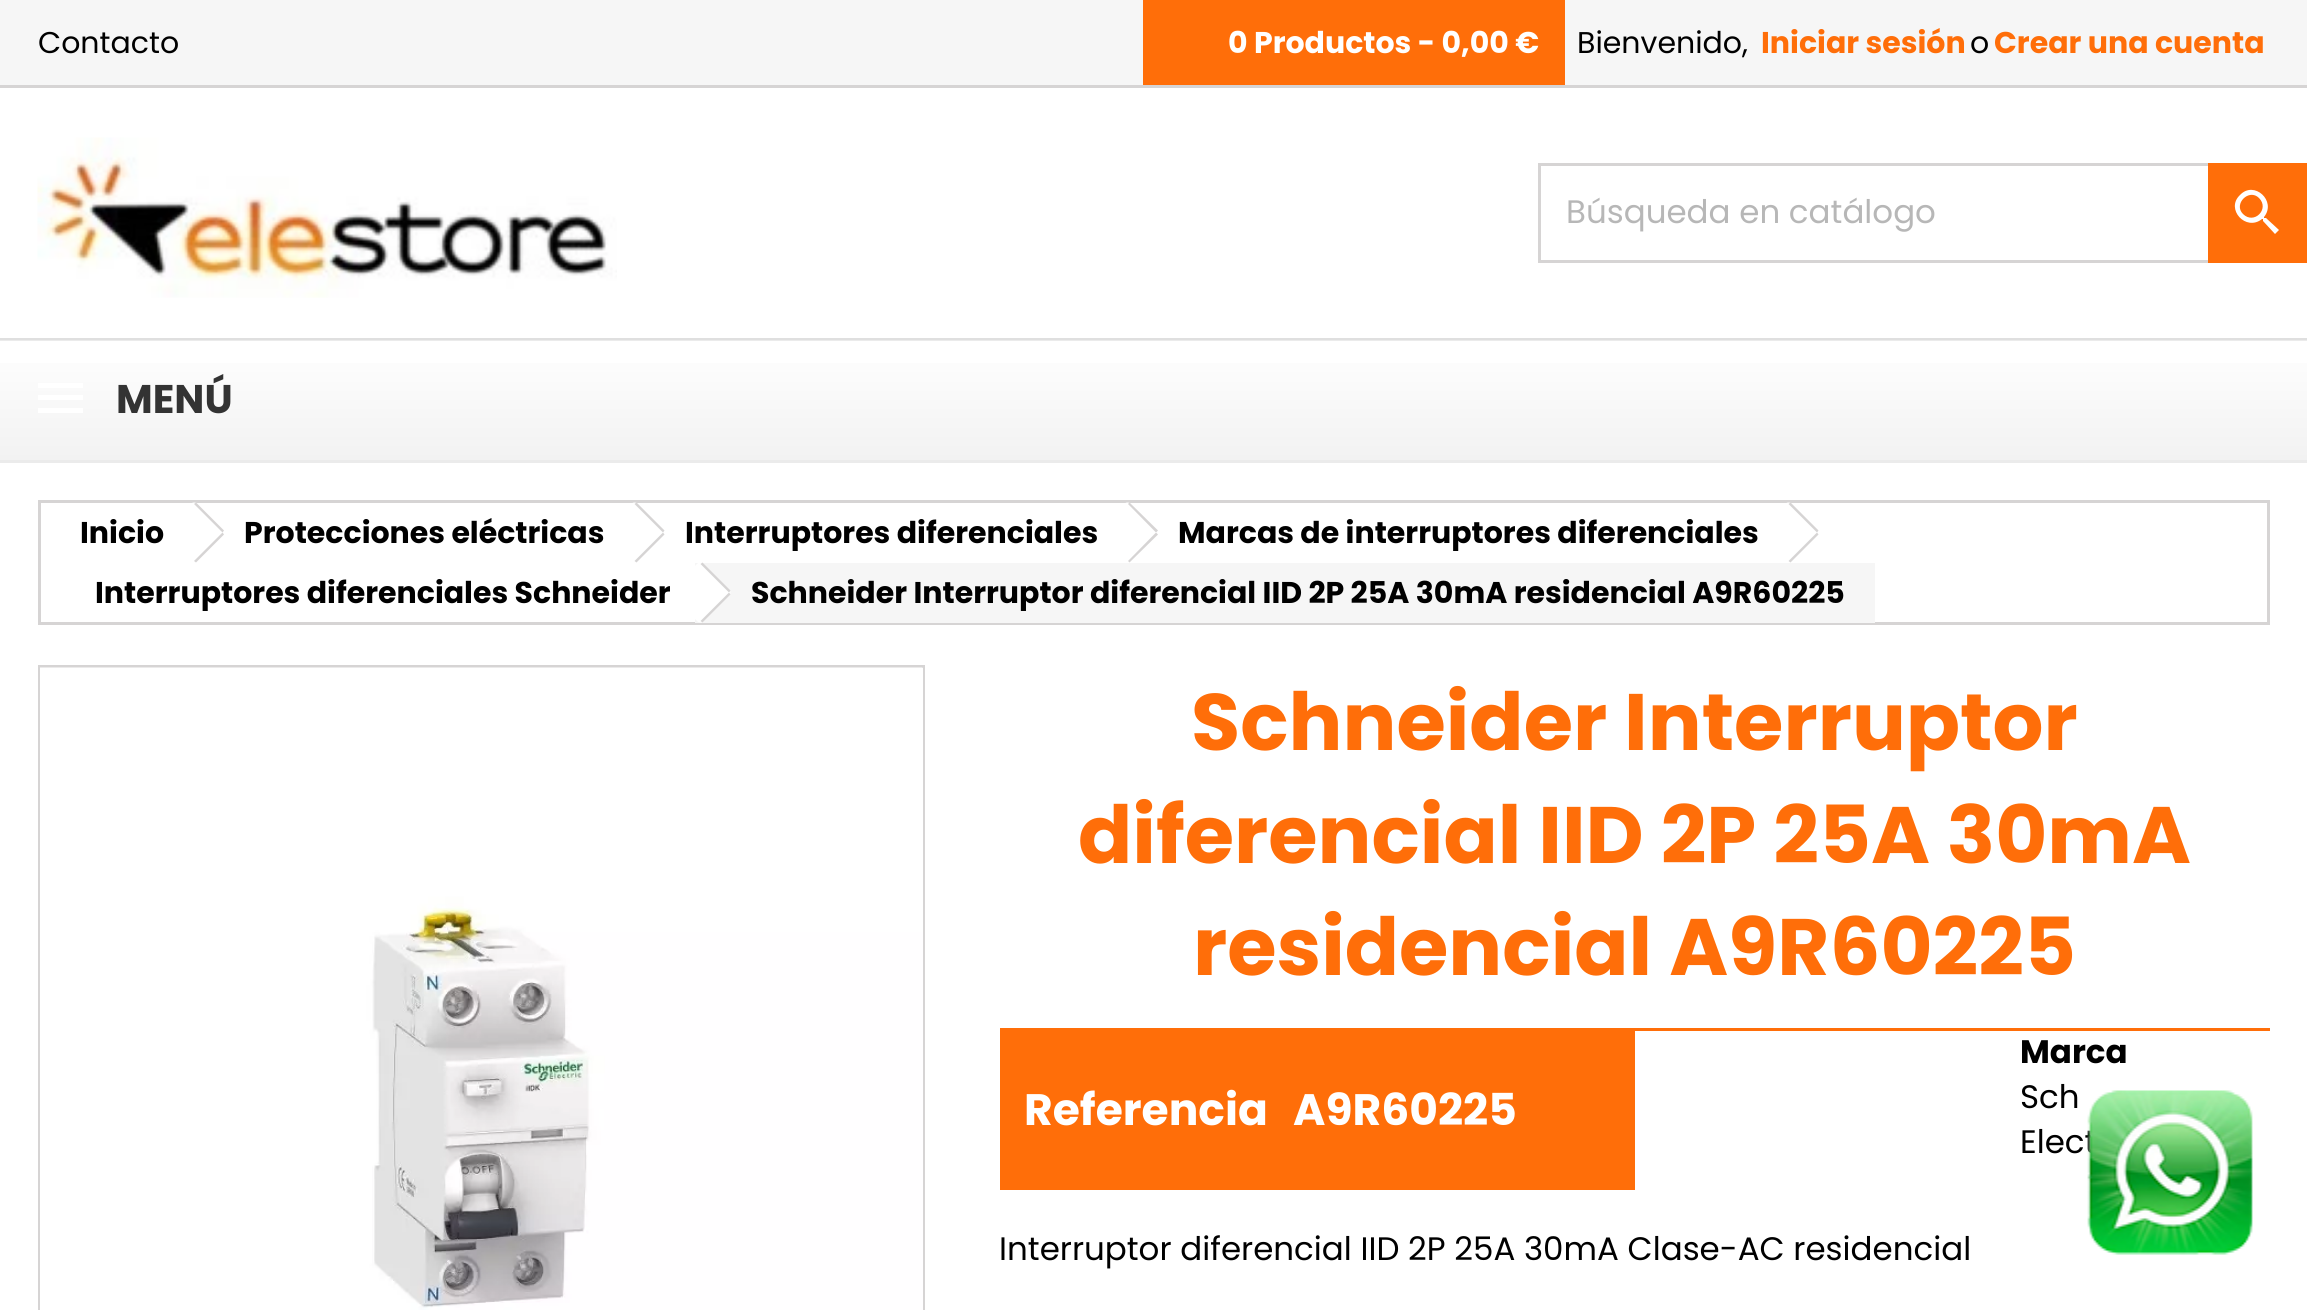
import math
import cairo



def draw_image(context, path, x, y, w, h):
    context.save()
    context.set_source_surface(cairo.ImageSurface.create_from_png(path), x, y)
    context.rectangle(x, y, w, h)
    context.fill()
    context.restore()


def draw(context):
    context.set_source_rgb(1, 1, 1)
    context.paint()
    context.set_source_rgb(246 / 255, 246 / 255, 246 / 255)
    context.rectangle(0, 0, 2307, 85)
    context.fill()
    context.set_source_rgb(214 / 255, 212 / 255, 212 / 255)
    context.rectangle(0, 85, 2307, 3)
    context.fill()
    context.set_source_rgb(1, 110 / 255, 9 / 255)
    context.rectangle(1143, 0, 422, 85)
    context.fill()
    draw_image(context, "images/1.png", 37, 137, 580, 161)
    context.rectangle(1539.5, 164.5, 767, 97)
    context.set_source_rgb(214 / 255, 212 / 255, 212 / 255)
    context.set_line_width(3)
    context.stroke()
    context.set_source_rgb(1, 110 / 255, 9 / 255)
    context.rectangle(2208, 163, 99, 100)
    context.fill()
    context.set_source_rgb(1, 1, 1)
    context.new_path()
    context.move_to(2243, 214)
    context.curve_to(2254, 225, 2270, 209, 2259, 198)
    context.curve_to(2249, 188, 2233, 204, 2243, 214)
    context.close_path()
    context.move_to(2266, 218)
    context.line_to(2279, 230)
    context.line_to(2275, 234)
    context.line_to(2263, 221)
    context.line_to(2263, 219)
    context.line_to(2262, 219)
    context.curve_to(2246, 232, 2225, 209, 2240, 195)
    context.curve_to(2254, 180, 2277, 201, 2264, 217)
    context.line_to(2264, 218)
    context.close_path()
    context.fill()
    gradient = cairo.LinearGradient(1154, 220, 1154, 340)
    gradient.add_color_stop_rgba(0, 235 / 255, 235 / 255, 235 / 255, 1)
    gradient.add_color_stop_rgba(1, 223 / 255, 223 / 255, 223 / 255, 1)
    context.set_source(gradient)
    context.rectangle(0, 338, 2307, 2)
    context.fill()
    gradient = cairo.LinearGradient(1154, 340, 1154, 460)
    gradient.add_color_stop_rgba(0, 1, 1, 1, 1)
    gradient.add_color_stop_rgba(1, 242 / 255, 242 / 255, 242 / 255, 1)
    context.set_source(gradient)
    context.rectangle(0, 363, 2307, 97)
    context.fill()
    gradient = cairo.LinearGradient(1154, 340, 1154, 460)
    gradient.add_color_stop_rgba(0, 235 / 255, 235 / 255, 235 / 255, 1)
    gradient.add_color_stop_rgba(1, 223 / 255, 223 / 255, 223 / 255, 1)
    context.set_source(gradient)
    context.rectangle(0, 340, 2307, 1)
    context.fill()
    context.set_source_rgb(235 / 255, 235 / 255, 235 / 255)
    context.rectangle(0, 460, 2307, 3)
    context.fill()
    context.set_source_rgb(1, 1, 1)
    context.rectangle(38, 383, 45, 5)
    context.fill()
    context.rectangle(38, 395, 45, 5)
    context.fill()
    context.rectangle(38, 408, 45, 5)
    context.fill()
    context.rectangle(39.5, 501.5, 2229, 122)
    context.set_source_rgb(214 / 255, 212 / 255, 212 / 255)
    context.stroke()
    context.set_source_rgb(1, 1, 1)
    context.new_path()
    context.move_to(198, 504)
    context.line_to(222, 529)
    context.curve_to(224, 531, 224, 534, 222, 536)
    context.line_to(198, 561)
    context.curve_to(196, 563, 192, 563, 191, 561)
    context.line_to(166, 536)
    context.curve_to(164, 534, 164, 531, 166, 529)
    context.line_to(191, 504)
    context.curve_to(192, 502, 196, 502, 198, 504)
    context.close_path()
    context.fill()
    context.set_source_rgb(214 / 255, 212 / 255, 212 / 255)
    context.new_path()
    context.move_to(196, 502.5)
    context.line_to(224, 530.5)
    context.line_to(222.5, 532.5)
    context.line_to(194, 504)
    context.close_path()
    context.fill()
    context.new_path()
    context.move_to(222.5, 532.5)
    context.line_to(224, 534.5)
    context.line_to(196, 562.5)
    context.line_to(194, 561)
    context.close_path()
    context.fill()
    context.set_source_rgb(1, 1, 1)
    context.new_path()
    context.move_to(638, 504)
    context.line_to(663, 529)
    context.curve_to(665, 531, 665, 534, 663, 536)
    context.line_to(638, 561)
    context.curve_to(636, 563, 633, 563, 631, 561)
    context.line_to(606, 536)
    context.curve_to(604, 534, 604, 531, 606, 529)
    context.line_to(631, 504)
    context.curve_to(633, 502, 636, 502, 638, 504)
    context.close_path()
    context.fill()
    context.set_source_rgb(214 / 255, 212 / 255, 212 / 255)
    context.new_path()
    context.move_to(636.5, 502.5)
    context.line_to(664.5, 530.5)
    context.line_to(663, 532.5)
    context.line_to(634.5, 504)
    context.close_path()
    context.fill()
    context.new_path()
    context.move_to(663, 532.5)
    context.line_to(664.5, 534.5)
    context.line_to(636.5, 562.5)
    context.line_to(634.5, 561)
    context.close_path()
    context.fill()
    context.set_source_rgb(1, 1, 1)
    context.new_path()
    context.move_to(1131, 504)
    context.line_to(1156, 529)
    context.curve_to(1158, 531, 1158, 534, 1156, 536)
    context.line_to(1131, 561)
    context.curve_to(1129, 563, 1126, 563, 1124, 561)
    context.line_to(1099, 536)
    context.curve_to(1098, 534, 1098, 531, 1099, 529)
    context.line_to(1124, 504)
    context.curve_to(1126, 502, 1129, 502, 1131, 504)
    context.close_path()
    context.fill()
    context.set_source_rgb(214 / 255, 212 / 255, 212 / 255)
    context.new_path()
    context.move_to(1129.5, 502.5)
    context.line_to(1158, 530.5)
    context.line_to(1156, 532.5)
    context.line_to(1128, 504)
    context.close_path()
    context.fill()
    context.new_path()
    context.move_to(1156, 532.5)
    context.line_to(1158, 534.5)
    context.line_to(1129.5, 562.5)
    context.line_to(1128, 561)
    context.close_path()
    context.fill()
    context.set_source_rgb(1, 1, 1)
    context.new_path()
    context.move_to(1792, 504)
    context.line_to(1817, 529)
    context.curve_to(1819, 531, 1819, 534, 1817, 536)
    context.line_to(1792, 561)
    context.curve_to(1790, 563, 1787, 563, 1785, 561)
    context.line_to(1760, 536)
    context.curve_to(1758, 534, 1758, 531, 1760, 529)
    context.line_to(1785, 504)
    context.curve_to(1787, 502, 1790, 502, 1792, 504)
    context.close_path()
    context.fill()
    context.set_source_rgb(214 / 255, 212 / 255, 212 / 255)
    context.new_path()
    context.move_to(1790.5, 502.5)
    context.line_to(1818.5, 530.5)
    context.line_to(1817, 532.5)
    context.line_to(1788.5, 504)
    context.close_path()
    context.fill()
    context.new_path()
    context.move_to(1817, 532.5)
    context.line_to(1818.5, 534.5)
    context.line_to(1790.5, 562.5)
    context.line_to(1788.5, 561)
    context.close_path()
    context.fill()
    context.set_source_rgb(246 / 255, 246 / 255, 246 / 255)
    context.rectangle(695, 563, 1180, 60)
    context.fill()
    context.rectangle(39.5, 666.5, 884, 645)
    context.set_source_rgb(214 / 255, 212 / 255, 212 / 255)
    context.stroke()
    context.set_source_rgb(1, 1, 1)
    context.rectangle(922, 668, 1, 642)
    context.fill()
    draw_image(context, "images/2.png", 40, 667, 883, 643)
    context.set_source_rgb(1, 110 / 255, 9 / 255)
    context.rectangle(1000, 1028, 1270, 3)
    context.fill()
    context.rectangle(1000, 1031, 635, 159)
    context.fill()
    context.select_font_face("Poppins")
    context.set_font_size(30)
    context.set_source_rgb(0, 0, 0)
    context.move_to(38, 53)
    context.show_text("Contacto")
    context.select_font_face("Poppins", cairo.FontSlant.NORMAL, cairo.FontWeight.BOLD)
    context.set_source_rgb(1, 1, 1)
    context.move_to(1228, 53)
    context.show_text("0 Productos - 0,00 €")
    context.select_font_face("Poppins")
    context.set_source_rgb(0, 0, 0)
    context.move_to(1577, 53)
    context.show_text("Bienvenido,")
    context.select_font_face("Poppins", cairo.FontSlant.NORMAL, cairo.FontWeight.BOLD)
    context.set_source_rgb(1, 110 / 255, 9 / 255)
    context.move_to(1761, 53)
    context.show_text("Iniciar sesión")
    context.select_font_face("Poppins")
    context.set_source_rgb(0, 0, 0)
    context.move_to(1970, 53)
    context.show_text("o")
    context.select_font_face("Poppins", cairo.FontSlant.NORMAL, cairo.FontWeight.BOLD)
    context.set_source_rgb(1, 110 / 255, 9 / 255)
    context.move_to(1994, 53)
    context.show_text("Crear una cuenta")
    context.select_font_face("Poppins")
    context.set_font_size(32.5)
    context.set_source_rgb(183 / 255, 183 / 255, 183 / 255)
    context.move_to(1566, 223)
    context.show_text("Búsqueda en catálogo")
    context.select_font_face("Poppins", cairo.FontSlant.NORMAL, cairo.FontWeight.BOLD)
    context.set_font_size(40)
    context.set_source_rgb(51 / 255, 51 / 255, 51 / 255)
    context.move_to(116, 413)
    context.show_text("MENÚ")
    context.set_font_size(30)
    context.set_source_rgb(0, 0, 0)
    context.move_to(80, 543)
    context.show_text("Inicio")
    context.move_to(244, 543)
    context.show_text("Protecciones eléctricas")
    context.move_to(685, 543)
    context.show_text("Interruptores diferenciales")
    context.move_to(1178, 543)
    context.show_text("Marcas de interruptores diferenciales")
    context.move_to(95, 603)
    context.show_text("Interruptores diferenciales Schneider")
    context.set_source_rgb(1, 1, 1)
    context.new_path()
    context.move_to(704, 564)
    context.line_to(729, 589)
    context.curve_to(731, 591, 731, 594, 729, 596)
    context.line_to(704, 621)
    context.curve_to(702, 623, 699, 623, 697, 621)
    context.line_to(672, 596)
    context.curve_to(670, 594, 670, 591, 672, 589)
    context.line_to(697, 564)
    context.curve_to(699, 562, 702, 562, 704, 564)
    context.close_path()
    context.fill()
    context.set_source_rgb(214 / 255, 212 / 255, 212 / 255)
    context.new_path()
    context.move_to(702.5, 562.5)
    context.line_to(730.5, 590.5)
    context.line_to(729, 592.5)
    context.line_to(700.5, 564)
    context.close_path()
    context.fill()
    context.new_path()
    context.move_to(729, 592.5)
    context.line_to(730.5, 594.5)
    context.line_to(702.5, 622.5)
    context.line_to(700.5, 621)
    context.close_path()
    context.fill()
    context.set_source_rgb(0, 0, 0)
    context.move_to(751, 603)
    context.show_text("Schneider Interruptor diferencial IID 2P 25A 30mA residencial A9R60225")
    context.set_font_size(80)
    context.set_source_rgb(1, 110 / 255, 9 / 255)
    context.move_to(1191, 750)
    context.show_text("Schneider Interruptor")
    context.move_to(1078, 863)
    context.show_text("diferencial IID 2P 25A 30mA")
    context.move_to(1193, 975)
    context.show_text("residencial A9R60225")
    context.set_font_size(44)
    context.set_source_rgb(1, 1, 1)
    context.move_to(1024, 1125)
    context.show_text("Referencia")
    context.move_to(1293, 1125)
    context.show_text("A9R60225")
    context.set_font_size(32.5)
    context.set_source_rgb(0, 0, 0)
    context.move_to(2020, 1063)
    context.show_text("Marca")
    context.select_font_face("Poppins")
    context.move_to(2020, 1108)
    context.show_text("Sch")
    context.move_to(2020, 1153)
    context.show_text("Elect")
    context.move_to(999, 1260)
    context.show_text("Interruptor diferencial IID 2P 25A 30mA Clase-AC residencial")
    draw_image(context, "images/3.png", 2087, 1090, 166, 165)


surface = cairo.ImageSurface(cairo.Format.RGB24, 2307, 1310)
context = cairo.Context(surface)
options = cairo.FontOptions()
options.set_hint_metrics(cairo.HintMetrics.OFF)
options.set_hint_style(cairo.HintStyle.NONE)
context.set_font_options(options)
context.set_miter_limit(4)
draw(context)
surface.write_to_png("out.png")
